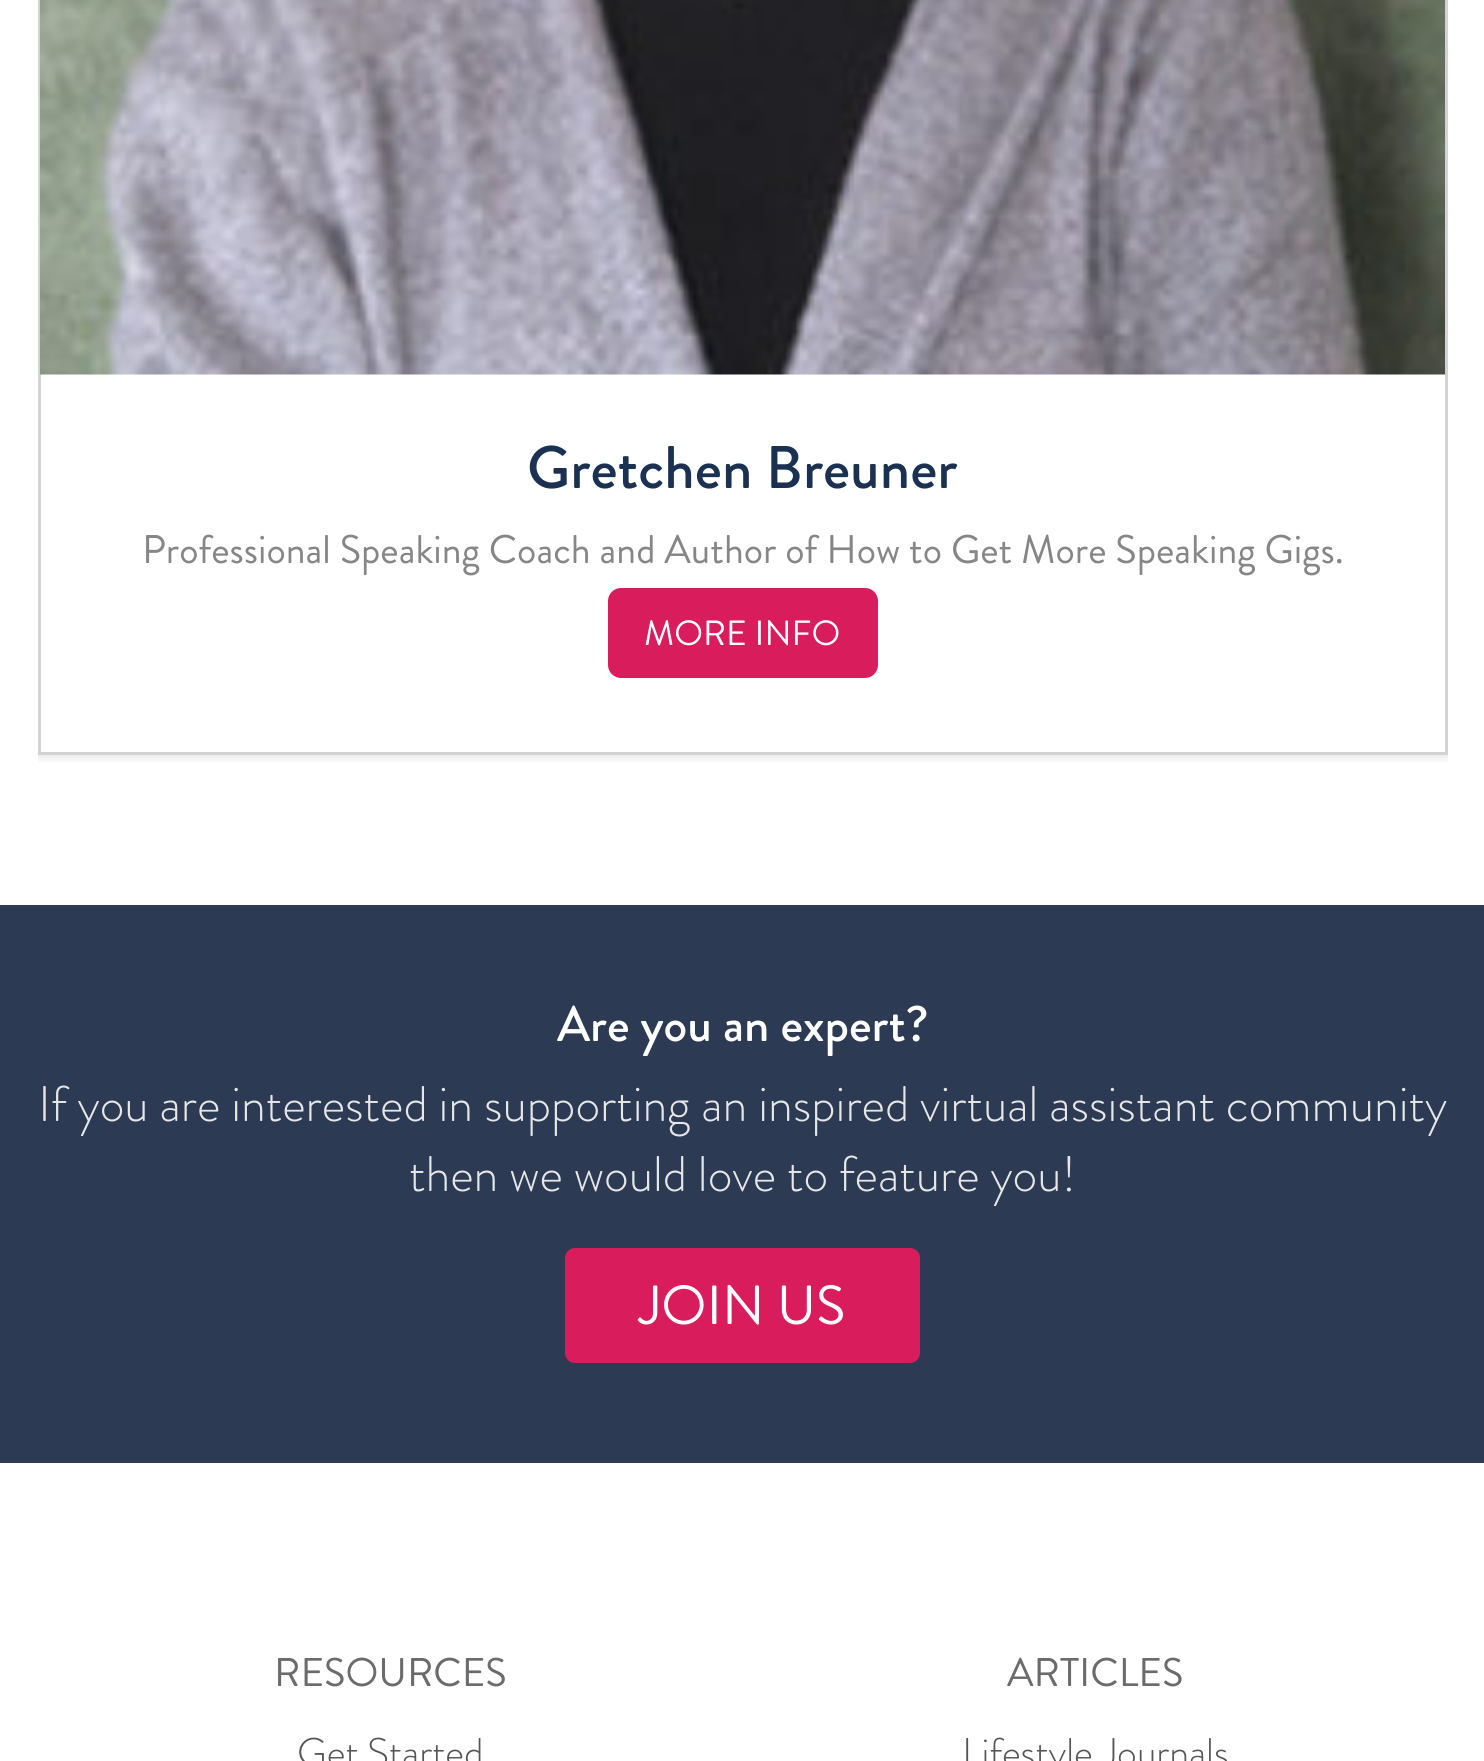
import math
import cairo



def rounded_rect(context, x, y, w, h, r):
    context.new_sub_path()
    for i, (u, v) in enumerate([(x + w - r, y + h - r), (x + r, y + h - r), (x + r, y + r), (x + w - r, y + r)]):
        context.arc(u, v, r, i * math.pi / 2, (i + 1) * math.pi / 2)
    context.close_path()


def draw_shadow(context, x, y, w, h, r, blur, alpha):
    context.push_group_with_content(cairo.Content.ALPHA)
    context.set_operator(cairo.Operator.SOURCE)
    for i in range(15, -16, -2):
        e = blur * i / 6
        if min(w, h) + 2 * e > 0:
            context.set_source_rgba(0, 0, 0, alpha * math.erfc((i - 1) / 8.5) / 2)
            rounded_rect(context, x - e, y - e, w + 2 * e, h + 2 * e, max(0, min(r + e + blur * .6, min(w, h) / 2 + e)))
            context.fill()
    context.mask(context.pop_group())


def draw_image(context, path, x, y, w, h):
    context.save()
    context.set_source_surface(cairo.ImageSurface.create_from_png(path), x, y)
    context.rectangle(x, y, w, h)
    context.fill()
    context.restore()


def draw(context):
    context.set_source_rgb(1, 1, 1)
    context.paint()
    context.save()
    context.rectangle(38, 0, 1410, 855)
    context.clip()
    context.rectangle(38, 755, 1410, 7)
    context.clip()
    context.set_source_rgb(0, 0, 0)
    draw_shadow(context, 38, -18, 1410, 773, 0, 6, 0.15)
    context.restore()
    context.rectangle(39.5, -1.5, 1407, 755)
    context.set_source_rgb(211 / 255, 211 / 255, 211 / 255)
    context.set_line_width(3)
    context.stroke()
    draw_image(context, "images/1.png", 40, 0, 1405, 375)
    context.set_source_rgb(217 / 255, 28 / 255, 91 / 255)
    rounded_rect(context, 608, 588, 270, 90, 13)
    context.fill()
    context.set_source_rgb(44 / 255, 59 / 255, 83 / 255)
    context.rectangle(0, 905, 1484, 558)
    context.fill()
    context.set_source_rgb(217 / 255, 28 / 255, 91 / 255)
    rounded_rect(context, 565, 1248, 355, 115, 10)
    context.fill()
    context.select_font_face("Brandon Grotesque Medium")
    context.set_font_size(60)
    context.set_source_rgb(26 / 255, 49 / 255, 81 / 255)
    context.move_to(527, 488)
    context.show_text("Gretchen Breuner")
    context.select_font_face("Brandon Grotesque")
    context.set_font_size(40)
    context.set_source_rgb(135 / 255, 134 / 255, 134 / 255)
    context.move_to(142, 563)
    context.show_text("Professional Speaking Coach and Author of How to Get More Speaking Gigs.")
    context.set_font_size(35)
    context.set_source_rgb(1, 1, 1)
    context.move_to(644, 645)
    context.show_text("MORE INFO")
    context.select_font_face("Brandon Grotesque Medium")
    context.set_font_size(50)
    context.move_to(557, 1041)
    context.show_text("Are you an expert?")
    context.select_font_face("Brandon Grotesque Light")
    context.set_source_rgb(231 / 255, 231 / 255, 231 / 255)
    context.move_to(38, 1121)
    context.show_text("If you are interested in supporting an inspired virtual assistant community")
    context.move_to(409, 1191)
    context.show_text("then we would love to feature you!")
    context.select_font_face("Brandon Grotesque")
    context.set_font_size(55)
    context.set_source_rgb(1, 1, 1)
    context.move_to(639, 1324)
    context.show_text("JOIN US")
    context.set_font_size(40)
    context.set_source_rgb(107 / 255, 107 / 255, 107 / 255)
    context.move_to(274, 1686)
    context.show_text("RESOURCES")
    context.select_font_face("Brandon Grotesque Light")
    context.set_source_rgb(85 / 255, 85 / 255, 85 / 255)
    context.move_to(297, 1766)
    context.show_text("Get Started")
    context.select_font_face("Brandon Grotesque")
    context.set_source_rgb(107 / 255, 107 / 255, 107 / 255)
    context.move_to(1007, 1686)
    context.show_text("ARTICLES")
    context.select_font_face("Brandon Grotesque Light")
    context.set_source_rgb(85 / 255, 85 / 255, 85 / 255)
    context.move_to(962, 1766)
    context.show_text("Lifestyle Journals")


surface = cairo.ImageSurface(cairo.Format.RGB24, 1484, 1761)
context = cairo.Context(surface)
options = cairo.FontOptions()
options.set_hint_metrics(cairo.HintMetrics.OFF)
options.set_hint_style(cairo.HintStyle.NONE)
context.set_font_options(options)
context.set_miter_limit(4)
draw(context)
surface.write_to_png("out.png")
